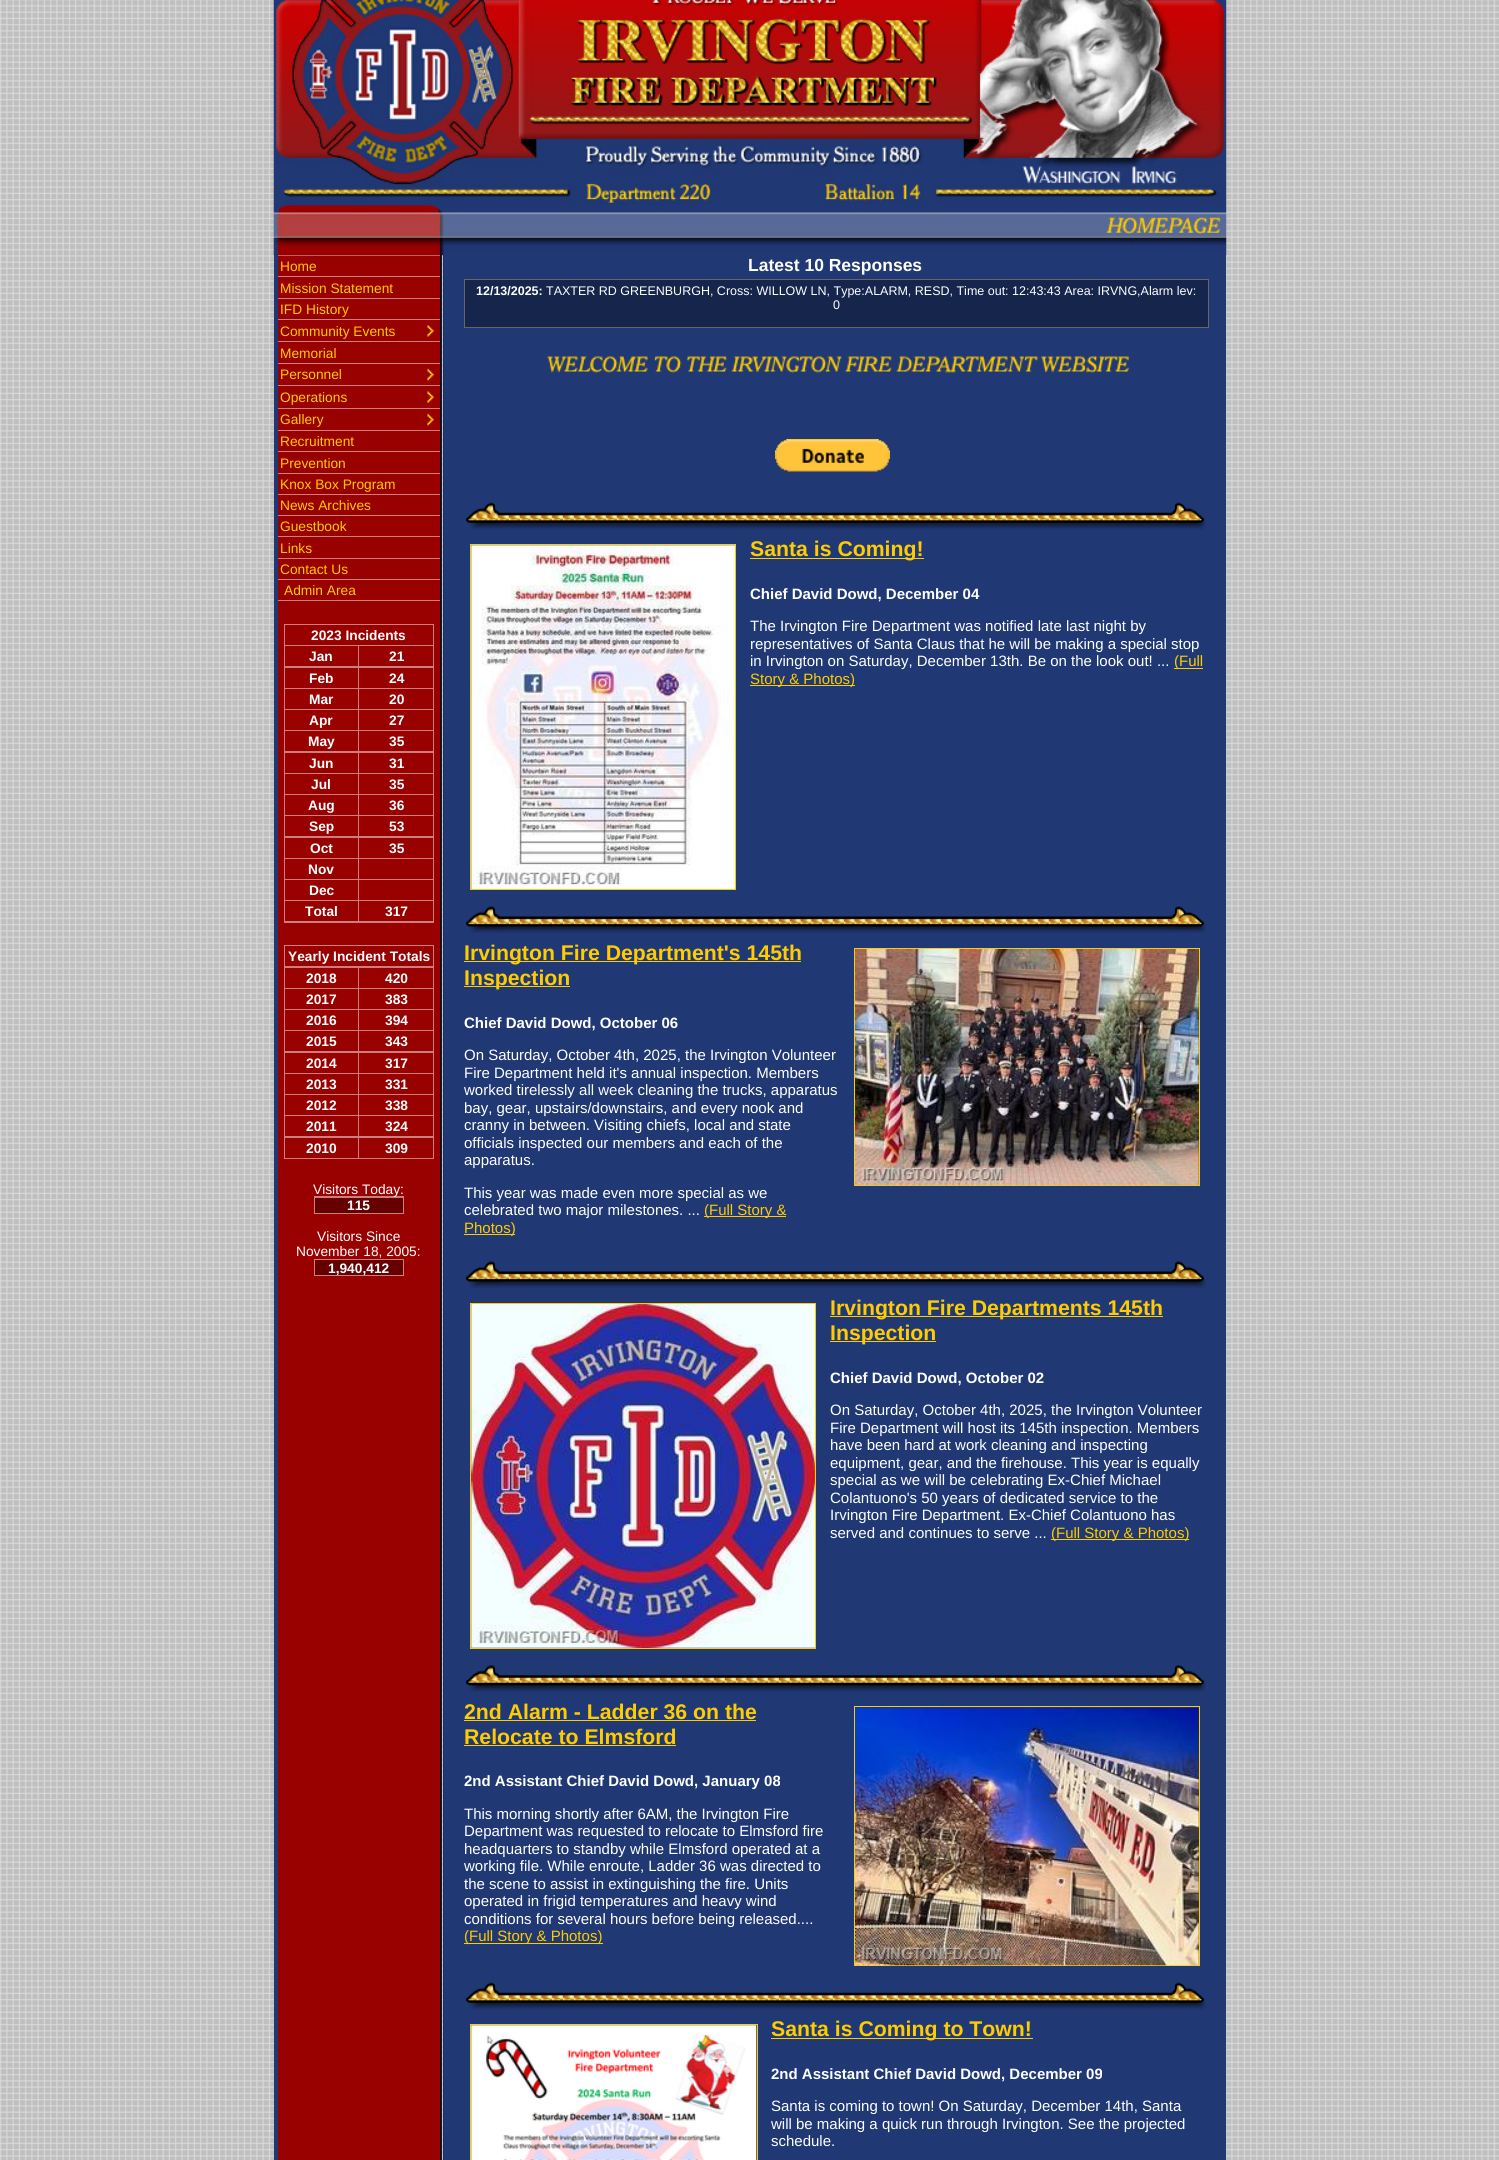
import math
import cairo



def draw_image(context, path, x, y, w, h):
    context.save()
    context.set_source_surface(cairo.ImageSurface.create_from_png(path), x, y)
    context.rectangle(x, y, w, h)
    context.fill()
    context.restore()


def draw(context):
    context.set_source_rgb(1, 1, 1)
    context.paint()
    draw_image(context, "images/1.png", 0, 0, 1499, 2160)
    draw_image(context, "images/2.png", 273, 0, 954, 213)
    context.set_source_rgb(32 / 255, 56 / 255, 116 / 255)
    context.rectangle(274, 255, 4, 1905)
    context.fill()
    context.set_source_rgb(204 / 255, 127 / 255, 127 / 255)
    context.rectangle(278, 255, 162, 1)
    context.fill()
    context.set_source_rgb(8 / 255, 14 / 255, 29 / 255)
    context.rectangle(440, 255, 1, 1905)
    context.fill()
    context.set_source_rgb(14 / 255, 25 / 255, 51 / 255)
    context.rectangle(441, 255, 1, 1905)
    context.fill()
    context.set_source_rgb(26 / 255, 45 / 255, 94 / 255)
    context.rectangle(443, 255, 1, 1905)
    context.fill()
    context.set_source_rgb(32 / 255, 56 / 255, 116 / 255)
    context.rectangle(444, 255, 782, 1905)
    context.fill()
    draw_image(context, "images/3.png", 273, 212, 954, 44)
    context.set_source_rgb(153 / 255, 0, 0)
    context.rectangle(278, 256, 162, 1904)
    context.fill()
    context.set_source_rgb(204 / 255, 127 / 255, 127 / 255)
    context.rectangle(278, 276, 162, 1)
    context.fill()
    context.rectangle(278, 298, 162, 1)
    context.fill()
    context.rectangle(278, 319, 162, 1)
    context.fill()
    draw_image(context, "images/4.png", 427, 325, 7, 12)
    context.rectangle(278, 341, 162, 1)
    context.fill()
    context.rectangle(278, 363, 162, 1)
    context.fill()
    draw_image(context, "images/5.png", 427, 368, 7, 13)
    context.rectangle(278, 385, 162, 1)
    context.fill()
    draw_image(context, "images/6.png", 427, 391, 7, 12)
    context.rectangle(278, 408, 162, 1)
    context.fill()
    draw_image(context, "images/5.png", 427, 413, 7, 13)
    context.rectangle(278, 430, 162, 1)
    context.fill()
    context.rectangle(278, 451, 162, 1)
    context.fill()
    context.rectangle(278, 473, 162, 1)
    context.fill()
    context.rectangle(278, 494, 162, 1)
    context.fill()
    context.rectangle(278, 515, 162, 1)
    context.fill()
    context.rectangle(278, 536, 162, 1)
    context.fill()
    context.rectangle(278, 558, 162, 1)
    context.fill()
    context.rectangle(278, 579, 162, 1)
    context.fill()
    context.rectangle(278, 600, 162, 1)
    context.fill()
    context.rectangle(284, 624, 150, 299)
    context.fill()
    context.set_source_rgb(153 / 255, 0, 0)
    context.rectangle(285, 625, 148, 20)
    context.fill()
    context.rectangle(285, 646, 73, 20)
    context.fill()
    context.rectangle(359, 646, 74, 20)
    context.fill()
    context.rectangle(285, 668, 73, 20)
    context.fill()
    context.rectangle(359, 668, 74, 20)
    context.fill()
    context.rectangle(285, 689, 73, 20)
    context.fill()
    context.rectangle(359, 689, 74, 20)
    context.fill()
    context.rectangle(285, 710, 73, 20)
    context.fill()
    context.rectangle(359, 710, 74, 20)
    context.fill()
    context.rectangle(285, 731, 73, 20)
    context.fill()
    context.rectangle(359, 731, 74, 20)
    context.fill()
    context.rectangle(285, 753, 73, 20)
    context.fill()
    context.rectangle(359, 753, 74, 20)
    context.fill()
    context.rectangle(285, 774, 73, 20)
    context.fill()
    context.rectangle(359, 774, 74, 20)
    context.fill()
    context.rectangle(285, 795, 73, 20)
    context.fill()
    context.rectangle(359, 795, 74, 20)
    context.fill()
    context.rectangle(285, 816, 73, 20)
    context.fill()
    context.rectangle(359, 816, 74, 20)
    context.fill()
    context.rectangle(285, 838, 73, 20)
    context.fill()
    context.rectangle(359, 838, 74, 20)
    context.fill()
    context.rectangle(285, 859, 73, 20)
    context.fill()
    context.rectangle(359, 859, 74, 20)
    context.fill()
    context.rectangle(285, 880, 73, 20)
    context.fill()
    context.rectangle(359, 880, 74, 20)
    context.fill()
    context.rectangle(285, 901, 73, 20)
    context.fill()
    context.rectangle(359, 901, 74, 20)
    context.fill()
    context.set_source_rgb(204 / 255, 127 / 255, 127 / 255)
    context.rectangle(284, 945, 150, 214)
    context.fill()
    context.set_source_rgb(153 / 255, 0, 0)
    context.rectangle(285, 946, 148, 20)
    context.fill()
    context.rectangle(285, 968, 73, 20)
    context.fill()
    context.rectangle(359, 968, 74, 20)
    context.fill()
    context.rectangle(285, 989, 73, 20)
    context.fill()
    context.rectangle(359, 989, 74, 20)
    context.fill()
    context.rectangle(285, 1010, 73, 20)
    context.fill()
    context.rectangle(359, 1010, 74, 20)
    context.fill()
    context.rectangle(285, 1031, 73, 20)
    context.fill()
    context.rectangle(359, 1031, 74, 20)
    context.fill()
    context.rectangle(285, 1053, 73, 20)
    context.fill()
    context.rectangle(359, 1053, 74, 20)
    context.fill()
    context.rectangle(285, 1074, 73, 20)
    context.fill()
    context.rectangle(359, 1074, 74, 20)
    context.fill()
    context.rectangle(285, 1095, 73, 20)
    context.fill()
    context.rectangle(359, 1095, 74, 20)
    context.fill()
    context.rectangle(285, 1116, 73, 20)
    context.fill()
    context.rectangle(359, 1116, 74, 20)
    context.fill()
    context.rectangle(285, 1138, 73, 20)
    context.fill()
    context.rectangle(359, 1138, 74, 20)
    context.fill()
    context.set_source_rgb(204 / 255, 127 / 255, 127 / 255)
    context.rectangle(314, 1196, 90, 18)
    context.fill()
    context.set_source_rgb(102 / 255, 0, 0)
    context.rectangle(315, 1198, 88, 15)
    context.fill()
    context.set_source_rgb(204 / 255, 127 / 255, 127 / 255)
    context.rectangle(314, 1259, 90, 17)
    context.fill()
    context.set_source_rgb(102 / 255, 0, 0)
    context.rectangle(315, 1260, 88, 15)
    context.fill()
    context.set_source_rgb(21 / 255, 37 / 255, 76 / 255)
    context.rectangle(464.5, 279.5, 744, 48)
    context.fill_preserve()
    context.set_source_rgb(102 / 255, 102 / 255, 102 / 255)
    context.set_line_width(1)
    context.stroke()
    draw_image(context, "images/7.png", 547, 356, 582, 17)
    draw_image(context, "images/8.png", 775, 439, 115, 33)
    draw_image(context, "images/9.png", 466, 502, 740, 28)
    context.rectangle(470.5, 544.5, 265, 345)
    context.set_source_rgb(1, 204 / 255, 0)
    context.stroke()
    draw_image(context, "images/10.png", 471, 545, 264, 344)
    context.rectangle(750, 558, 174, 1)
    context.fill()
    context.rectangle(1174, 668, 29, 1)
    context.fill()
    context.rectangle(750, 685, 105, 1)
    context.fill()
    draw_image(context, "images/11.png", 466, 906, 740, 27)
    context.rectangle(464, 961, 337, 1)
    context.fill()
    context.rectangle(464, 986, 106, 1)
    context.fill()
    context.rectangle(704, 1216, 82, 1)
    context.fill()
    context.rectangle(464, 1234, 51, 1)
    context.fill()
    context.rectangle(854.5, 948.5, 345, 237)
    context.stroke()
    draw_image(context, "images/12.png", 855, 949, 344, 237)
    draw_image(context, "images/11.png", 466, 1261, 740, 27)
    context.rectangle(470.5, 1303.5, 345, 345)
    context.stroke()
    draw_image(context, "images/13.png", 471, 1304, 344, 344)
    context.rectangle(830, 1316, 333, 1)
    context.fill()
    context.rectangle(830, 1341, 106, 1)
    context.fill()
    context.rectangle(1051, 1539, 138, 1)
    context.fill()
    draw_image(context, "images/14.png", 466, 1665, 740, 27)
    context.rectangle(464, 1720, 292, 1)
    context.fill()
    context.rectangle(464, 1745, 212, 1)
    context.fill()
    context.rectangle(464, 1943, 139, 1)
    context.fill()
    context.rectangle(854.5, 1706.5, 345, 259)
    context.stroke()
    draw_image(context, "images/15.png", 855, 1707, 344, 259)
    draw_image(context, "images/16.png", 466, 1982, 740, 28)
    context.rectangle(470.5, 2024.5, 287, 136)
    context.stroke()
    draw_image(context, "images/17.png", 471, 2025, 286, 135)
    context.rectangle(771, 2038, 262, 1)
    context.fill()
    context.select_font_face("Liberation Sans")
    context.set_font_size(13.75)
    context.move_to(280, 271)
    context.show_text("Home")
    context.move_to(280, 293)
    context.show_text("Mission Statement")
    context.move_to(280, 314)
    context.show_text("IFD History")
    context.move_to(280, 336)
    context.show_text("Community Events")
    context.move_to(280, 358)
    context.show_text("Memorial")
    context.move_to(280, 379)
    context.show_text("Personnel")
    context.move_to(280, 402)
    context.show_text("Operations")
    context.move_to(280, 424)
    context.show_text("Gallery")
    context.move_to(280, 446)
    context.show_text("Recruitment")
    context.move_to(280, 468)
    context.show_text("Prevention")
    context.move_to(280, 489)
    context.show_text("Knox Box Program")
    context.move_to(280, 510)
    context.show_text("News Archives")
    context.move_to(280, 531)
    context.show_text("Guestbook")
    context.move_to(280, 553)
    context.show_text("Links")
    context.move_to(280, 574)
    context.show_text("Contact Us")
    context.move_to(284, 595)
    context.show_text("Admin Area")
    context.select_font_face("Liberation Sans", cairo.FontSlant.NORMAL, cairo.FontWeight.BOLD)
    context.set_source_rgb(1, 1, 1)
    context.move_to(311, 640)
    context.show_text("2023 Incidents")
    context.move_to(309, 661)
    context.show_text("Jan")
    context.move_to(389, 661)
    context.show_text("21")
    context.move_to(309, 683)
    context.show_text("Feb")
    context.move_to(389, 683)
    context.show_text("24")
    context.move_to(309, 704)
    context.show_text("Mar")
    context.move_to(389, 704)
    context.show_text("20")
    context.move_to(309, 725)
    context.show_text("Apr")
    context.move_to(389, 725)
    context.show_text("27")
    context.move_to(308, 746)
    context.show_text("May")
    context.move_to(389, 746)
    context.show_text("35")
    context.move_to(309, 768)
    context.show_text("Jun")
    context.move_to(389, 768)
    context.show_text("31")
    context.move_to(311, 789)
    context.show_text("Jul")
    context.move_to(389, 789)
    context.show_text("35")
    context.move_to(308, 810)
    context.show_text("Aug")
    context.move_to(389, 810)
    context.show_text("36")
    context.move_to(309, 831)
    context.show_text("Sep")
    context.move_to(389, 831)
    context.show_text("53")
    context.move_to(310, 853)
    context.show_text("Oct")
    context.move_to(389, 853)
    context.show_text("35")
    context.move_to(308, 874)
    context.show_text("Nov")
    context.move_to(309, 895)
    context.show_text("Dec")
    context.move_to(305, 916)
    context.show_text("Total")
    context.move_to(385, 916)
    context.show_text("317")
    context.move_to(288, 961)
    context.show_text("Yearly Incident Totals")
    context.move_to(306, 983)
    context.show_text("2018")
    context.move_to(385, 983)
    context.show_text("420")
    context.move_to(306, 1004)
    context.show_text("2017")
    context.move_to(385, 1004)
    context.show_text("383")
    context.move_to(306, 1025)
    context.show_text("2016")
    context.move_to(385, 1025)
    context.show_text("394")
    context.move_to(306, 1046)
    context.show_text("2015")
    context.move_to(385, 1046)
    context.show_text("343")
    context.move_to(306, 1068)
    context.show_text("2014")
    context.move_to(385, 1068)
    context.show_text("317")
    context.move_to(306, 1089)
    context.show_text("2013")
    context.move_to(385, 1089)
    context.show_text("331")
    context.move_to(306, 1110)
    context.show_text("2012")
    context.move_to(385, 1110)
    context.show_text("338")
    context.move_to(306, 1131)
    context.show_text("2011")
    context.move_to(385, 1131)
    context.show_text("324")
    context.move_to(306, 1153)
    context.show_text("2010")
    context.move_to(385, 1153)
    context.show_text("309")
    context.select_font_face("Liberation Sans")
    context.move_to(313, 1194)
    context.show_text("Visitors Today:")
    context.select_font_face("Liberation Sans", cairo.FontSlant.NORMAL, cairo.FontWeight.BOLD)
    context.move_to(347, 1210)
    context.show_text("115")
    context.select_font_face("Liberation Sans")
    context.move_to(317, 1241)
    context.show_text("Visitors Since")
    context.move_to(296, 1256)
    context.show_text("November 18, 2005:")
    context.select_font_face("Liberation Sans", cairo.FontSlant.NORMAL, cairo.FontWeight.BOLD)
    context.move_to(328, 1273)
    context.show_text("1,940,412")
    context.set_font_size(17.5)
    context.move_to(748, 271)
    context.show_text("Latest 10 Responses")
    context.set_font_size(12.5)
    context.move_to(476, 295)
    context.show_text("12/13/2025:")
    context.select_font_face("Liberation Sans")
    context.move_to(546, 295)
    context.show_text("TAXTER RD GREENBURGH, Cross: WILLOW LN, Type:ALARM, RESD, Time out: 12:43:43 Area: IRVNG,Alarm lev:")
    context.move_to(833, 309)
    context.show_text("0")
    context.select_font_face("Liberation Sans", cairo.FontSlant.NORMAL, cairo.FontWeight.BOLD)
    context.set_font_size(21.25)
    context.set_source_rgb(1, 204 / 255, 0)
    context.move_to(750, 556)
    context.show_text("Santa is Coming!")
    context.set_font_size(15)
    context.set_source_rgb(1, 1, 1)
    context.move_to(750, 599)
    context.show_text("Chief David Dowd, December 04")
    context.select_font_face("Liberation Sans")
    context.move_to(750, 631)
    context.show_text("The Irvington Fire Department was notified late last night by")
    context.move_to(750, 649)
    context.show_text("representatives of Santa Claus that he will be making a special stop")
    context.move_to(750, 666)
    context.show_text("in Irvington on Saturday, December 13th. Be on the look out! ...")
    context.set_source_rgb(1, 204 / 255, 0)
    context.move_to(1174, 666)
    context.show_text("(Full")
    context.move_to(750, 684)
    context.show_text("Story & Photos)")
    context.select_font_face("Liberation Sans", cairo.FontSlant.NORMAL, cairo.FontWeight.BOLD)
    context.set_font_size(21.25)
    context.move_to(464, 960)
    context.show_text("Irvington Fire Department's 145th")
    context.move_to(464, 985)
    context.show_text("Inspection")
    context.set_font_size(15)
    context.set_source_rgb(1, 1, 1)
    context.move_to(464, 1028)
    context.show_text("Chief David Dowd, October 06")
    context.select_font_face("Liberation Sans")
    context.move_to(464, 1060)
    context.show_text("On Saturday, October 4th, 2025, the Irvington Volunteer")
    context.move_to(464, 1078)
    context.show_text("Fire Department held it's annual inspection. Members")
    context.move_to(464, 1095)
    context.show_text("worked tirelessly all week cleaning the trucks, apparatus")
    context.move_to(464, 1113)
    context.show_text("bay, gear, upstairs/downstairs, and every nook and")
    context.move_to(464, 1130)
    context.show_text("cranny in between. Visiting chiefs, local and state")
    context.move_to(464, 1148)
    context.show_text("officials inspected our members and each of the")
    context.move_to(464, 1165)
    context.show_text("apparatus.")
    context.move_to(464, 1198)
    context.show_text("This year was made even more special as we")
    context.move_to(464, 1215)
    context.show_text("celebrated two major milestones. ...")
    context.set_source_rgb(1, 204 / 255, 0)
    context.move_to(704, 1215)
    context.show_text("(Full Story &")
    context.move_to(464, 1233)
    context.show_text("Photos)")
    context.select_font_face("Liberation Sans", cairo.FontSlant.NORMAL, cairo.FontWeight.BOLD)
    context.set_font_size(21.25)
    context.move_to(830, 1315)
    context.show_text("Irvington Fire Departments 145th")
    context.move_to(830, 1340)
    context.show_text("Inspection")
    context.set_font_size(15)
    context.set_source_rgb(1, 1, 1)
    context.move_to(830, 1383)
    context.show_text("Chief David Dowd, October 02")
    context.select_font_face("Liberation Sans")
    context.move_to(830, 1415)
    context.show_text("On Saturday, October 4th, 2025, the Irvington Volunteer")
    context.move_to(830, 1433)
    context.show_text("Fire Department will host its 145th inspection. Members")
    context.move_to(830, 1450)
    context.show_text("have been hard at work cleaning and inspecting")
    context.move_to(830, 1468)
    context.show_text("equipment, gear, and the firehouse. This year is equally")
    context.move_to(830, 1485)
    context.show_text("special as we will be celebrating Ex-Chief Michael")
    context.move_to(830, 1503)
    context.show_text("Colantuono's 50 years of dedicated service to the")
    context.move_to(830, 1520)
    context.show_text("Irvington Fire Department. Ex-Chief Colantuono has")
    context.move_to(830, 1538)
    context.show_text("served and continues to serve ...")
    context.set_source_rgb(1, 204 / 255, 0)
    context.move_to(1051, 1538)
    context.show_text("(Full Story & Photos)")
    context.select_font_face("Liberation Sans", cairo.FontSlant.NORMAL, cairo.FontWeight.BOLD)
    context.set_font_size(21.25)
    context.move_to(464, 1719)
    context.show_text("2nd Alarm - Ladder 36 on the")
    context.move_to(464, 1744)
    context.show_text("Relocate to Elmsford")
    context.set_font_size(15)
    context.set_source_rgb(1, 1, 1)
    context.move_to(464, 1786)
    context.show_text("2nd Assistant Chief David Dowd, January 08")
    context.select_font_face("Liberation Sans")
    context.move_to(464, 1819)
    context.show_text("This morning shortly after 6AM, the Irvington Fire")
    context.move_to(464, 1836)
    context.show_text("Department was requested to relocate to Elmsford fire")
    context.move_to(464, 1854)
    context.show_text("headquarters to standby while Elmsford operated at a")
    context.move_to(464, 1871)
    context.show_text("working file. While enroute, Ladder 36 was directed to")
    context.move_to(464, 1889)
    context.show_text("the scene to assist in extinguishing the fire. Units")
    context.move_to(464, 1906)
    context.show_text("operated in frigid temperatures and heavy wind")
    context.move_to(464, 1924)
    context.show_text("conditions for several hours before being released....")
    context.set_source_rgb(1, 204 / 255, 0)
    context.move_to(464, 1941)
    context.show_text("(Full Story & Photos)")
    context.select_font_face("Liberation Sans", cairo.FontSlant.NORMAL, cairo.FontWeight.BOLD)
    context.set_font_size(21.25)
    context.move_to(771, 2036)
    context.show_text("Santa is Coming to Town!")
    context.set_font_size(15)
    context.set_source_rgb(1, 1, 1)
    context.move_to(771, 2079)
    context.show_text("2nd Assistant Chief David Dowd, December 09")
    context.select_font_face("Liberation Sans")
    context.move_to(771, 2111)
    context.show_text("Santa is coming to town! On Saturday, December 14th, Santa")
    context.move_to(771, 2129)
    context.show_text("will be making a quick run through Irvington. See the projected")
    context.move_to(771, 2146)
    context.show_text("schedule.")


surface = cairo.ImageSurface(cairo.Format.RGB24, 1499, 2160)
context = cairo.Context(surface)
options = cairo.FontOptions()
options.set_hint_metrics(cairo.HintMetrics.OFF)
options.set_hint_style(cairo.HintStyle.NONE)
context.set_font_options(options)
context.set_miter_limit(4)
draw(context)
surface.write_to_png("out.png")
